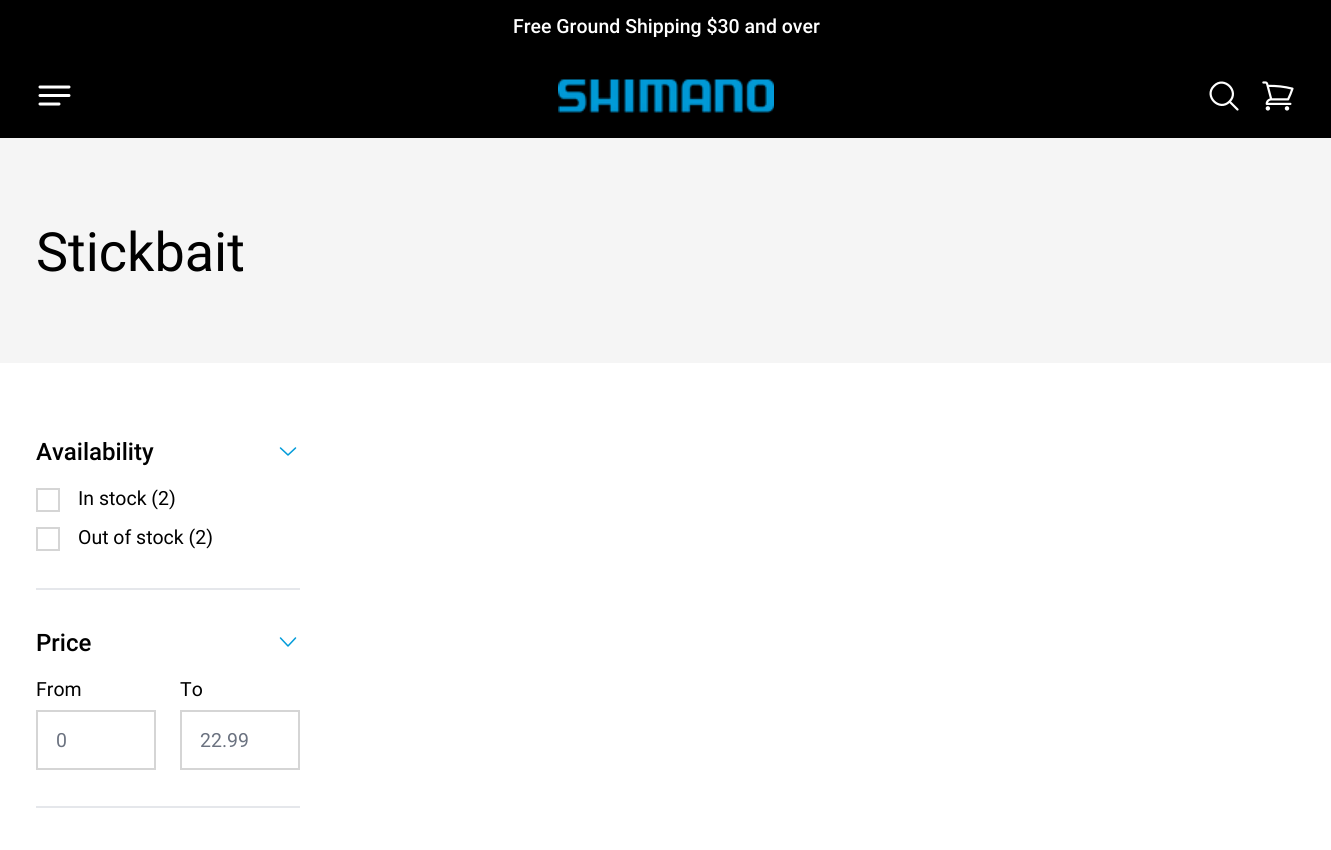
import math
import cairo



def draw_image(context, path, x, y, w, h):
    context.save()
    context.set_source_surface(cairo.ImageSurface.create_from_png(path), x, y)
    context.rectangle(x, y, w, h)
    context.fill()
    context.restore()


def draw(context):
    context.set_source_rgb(1, 1, 1)
    context.paint()
    context.set_source_rgb(0, 0, 0)
    context.rectangle(0, 0, 1331, 138)
    context.fill()
    context.new_path()
    context.move_to(40, 87)
    context.line_to(69, 87)
    context.move_to(40, 95.5)
    context.line_to(69, 95.5)
    context.move_to(40, 104)
    context.line_to(59, 104)
    context.set_source_rgb(1, 1, 1)
    context.set_line_width(3)
    context.set_line_cap(cairo.LineCap.ROUND)
    context.stroke()
    draw_image(context, "images/1.png", 558, 79, 216, 34)
    context.new_path()
    context.move_to(1237.5, 109.5)
    context.line_to(1229.5, 101.5)
    context.move_to(1229.5, 101.5)
    context.curve_to(1240, 91.5, 1224, 75.5, 1214, 86)
    context.curve_to(1203.5, 96, 1219.5, 112, 1229.5, 101.5)
    context.close_path()
    context.set_line_width(2.2)
    context.set_line_join(cairo.LineJoin.ROUND)
    context.stroke()
    draw_image(context, "images/2.png", 1262, 81, 32, 30)
    context.set_source_rgb(245 / 255, 245 / 255, 245 / 255)
    context.rectangle(0, 138, 1331, 225)
    context.fill()
    context.new_path()
    context.move_to(295.5, 448)
    context.line_to(288, 455)
    context.line_to(280.5, 448)
    context.set_source_rgb(1 / 255, 155 / 255, 217 / 255)
    context.set_line_width(1.5)
    context.stroke()
    context.rectangle(37, 489, 22, 22)
    context.set_source_rgb(213 / 255, 213 / 255, 213 / 255)
    context.set_line_width(2)
    context.set_line_cap(cairo.LineCap.BUTT)
    context.set_line_join(cairo.LineJoin.MITER)
    context.stroke()
    context.rectangle(37, 528, 22, 22)
    context.stroke()
    context.set_source_rgb(229 / 255, 231 / 255, 235 / 255)
    context.rectangle(36, 588, 264, 2)
    context.fill()
    context.new_path()
    context.move_to(295.5, 638)
    context.line_to(288, 646)
    context.line_to(280.5, 638)
    context.set_source_rgb(1 / 255, 155 / 255, 217 / 255)
    context.set_line_width(1.5)
    context.set_line_cap(cairo.LineCap.ROUND)
    context.set_line_join(cairo.LineJoin.ROUND)
    context.stroke()
    context.rectangle(37, 711, 118, 58)
    context.set_source_rgb(213 / 255, 213 / 255, 213 / 255)
    context.set_line_width(2)
    context.set_line_cap(cairo.LineCap.BUTT)
    context.set_line_join(cairo.LineJoin.MITER)
    context.stroke()
    context.rectangle(181, 711, 118, 58)
    context.stroke()
    context.set_source_rgb(229 / 255, 231 / 255, 235 / 255)
    context.rectangle(36, 806, 264, 2)
    context.fill()
    context.select_font_face("Roboto Medium")
    context.set_font_size(19.5)
    context.set_source_rgb(1, 1, 1)
    context.move_to(513, 33)
    context.show_text("Free Ground Shipping $30 and over")
    context.select_font_face("Roboto")
    context.set_font_size(54)
    context.set_source_rgb(0, 0, 0)
    context.move_to(36, 271)
    context.show_text("Stickbait")
    context.select_font_face("Roboto Medium")
    context.set_font_size(24)
    context.move_to(36, 460)
    context.show_text("Availability")
    context.select_font_face("Roboto")
    context.set_font_size(19.5)
    context.move_to(78, 505)
    context.show_text("In stock (2)")
    context.move_to(78, 544)
    context.show_text("Out of stock (2)")
    context.select_font_face("Roboto Medium")
    context.set_font_size(24)
    context.move_to(36, 651)
    context.show_text("Price")
    context.select_font_face("Roboto")
    context.set_font_size(19.5)
    context.move_to(36, 696)
    context.show_text("From")
    context.set_source_rgb(107 / 255, 114 / 255, 128 / 255)
    context.move_to(56, 747)
    context.show_text("0")
    context.set_source_rgb(0, 0, 0)
    context.move_to(180, 696)
    context.show_text("To")
    context.set_source_rgb(107 / 255, 114 / 255, 128 / 255)
    context.move_to(200, 747)
    context.show_text("22.99")


surface = cairo.ImageSurface(cairo.Format.RGB24, 1331, 850)
context = cairo.Context(surface)
options = cairo.FontOptions()
options.set_hint_metrics(cairo.HintMetrics.OFF)
options.set_hint_style(cairo.HintStyle.NONE)
context.set_font_options(options)
context.set_miter_limit(4)
draw(context)
surface.write_to_png("out.png")
